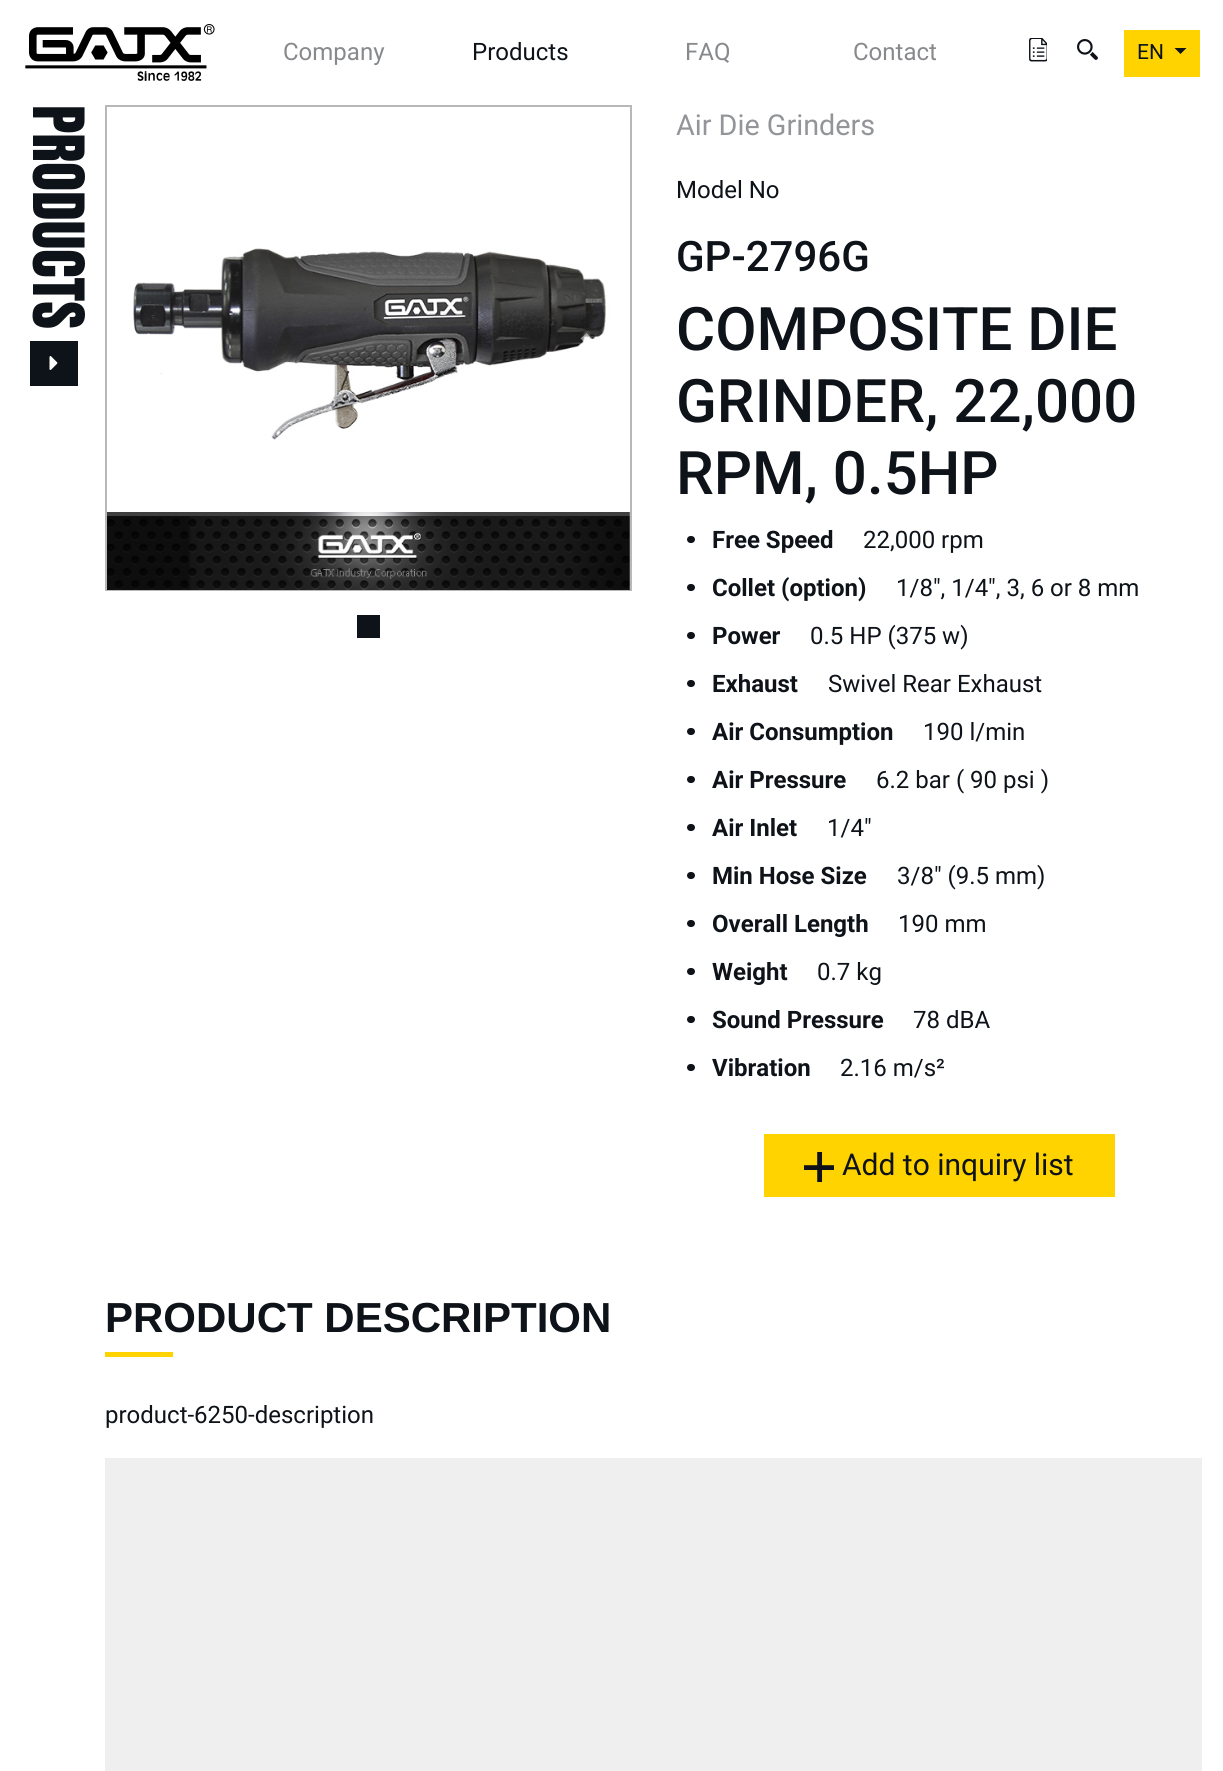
import math
import cairo



def rounded_rect(context, x, y, w, h, r):
    context.new_sub_path()
    for i, (u, v) in enumerate([(x + w - r, y + h - r), (x + r, y + h - r), (x + r, y + r), (x + w - r, y + r)]):
        context.arc(u, v, r, i * math.pi / 2, (i + 1) * math.pi / 2)
    context.close_path()


def draw_image(context, path, x, y, w, h):
    context.save()
    context.set_source_surface(cairo.ImageSurface.create_from_png(path), x, y)
    context.rectangle(x, y, w, h)
    context.fill()
    context.restore()


def draw(context):
    context.set_source_rgb(1, 1, 1)
    context.paint()
    draw_image(context, "images/1.png", 25, 24, 190, 57)
    draw_image(context, "images/2.png", 1029, 38, 18, 24)
    draw_image(context, "images/3.png", 1077, 39, 21, 21)
    context.set_source_rgb(1, 211 / 255, 0)
    context.rectangle(1124, 30, 76, 47)
    context.fill()
    context.set_source_rgb(14 / 255, 19 / 255, 25 / 255)
    context.new_path()
    context.move_to(1174.5, 48)
    context.line_to(1186.5, 48)
    context.line_to(1180.5, 54)
    context.close_path()
    context.fill()
    context.rectangle(30, 341, 48, 45)
    context.fill()
    draw_image(context, "images/4.png", 49, 356, 9, 14)
    context.rectangle(106, 106, 525, 484)
    context.set_source_rgb(183 / 255, 184 / 255, 186 / 255)
    context.stroke()
    draw_image(context, "images/5.png", 107, 248, 523, 342)
    context.set_source_rgba(1, 1, 1, 0.5)
    context.new_path()
    context.move_to(148.5, 333)
    context.line_to(133.5, 348)
    context.line_to(148.5, 363)
    context.line_to(154.5, 357.5)
    context.line_to(145, 348)
    context.line_to(154.5, 338.5)
    context.close_path()
    context.fill()
    context.new_path()
    context.move_to(586.5, 333)
    context.line_to(580.5, 338.5)
    context.line_to(590, 348)
    context.line_to(580.5, 357.5)
    context.line_to(586.5, 363)
    context.line_to(601.5, 348)
    context.close_path()
    context.fill()
    context.set_source_rgb(14 / 255, 19 / 255, 25 / 255)
    context.rectangle(357, 615, 23, 23)
    context.fill()
    rounded_rect(context, 687, 536, 8, 7, 3.5)
    context.fill()
    rounded_rect(context, 687, 584, 8, 7, 3.5)
    context.fill()
    rounded_rect(context, 687, 632, 8, 7, 3.5)
    context.fill()
    rounded_rect(context, 687, 680, 8, 7, 3.5)
    context.fill()
    rounded_rect(context, 687, 728, 8, 7, 3.5)
    context.fill()
    rounded_rect(context, 687, 776, 8, 7, 3.5)
    context.fill()
    rounded_rect(context, 687, 824, 8, 7, 3.5)
    context.fill()
    rounded_rect(context, 687, 872, 8, 7, 3.5)
    context.fill()
    rounded_rect(context, 687, 920, 8, 7, 3.5)
    context.fill()
    rounded_rect(context, 687, 968, 8, 7, 3.5)
    context.fill()
    rounded_rect(context, 687, 1016, 8, 7, 3.5)
    context.fill()
    rounded_rect(context, 687, 1064, 8, 7, 3.5)
    context.fill()
    context.set_source_rgb(1, 211 / 255, 0)
    context.rectangle(764, 1134, 351, 63)
    context.fill()
    draw_image(context, "images/6.png", 804, 1152, 30, 30)
    context.rectangle(105, 1352, 68, 5)
    context.fill()
    context.set_source_rgb(239 / 255, 239 / 255, 239 / 255)
    context.rectangle(105, 1458, 1097, 313)
    context.fill()
    context.select_font_face("Roboto")
    context.set_font_size(24)
    context.set_source_rgb(135 / 255, 137 / 255, 140 / 255)
    context.move_to(283, 60)
    context.show_text("Company")
    context.set_source_rgb(14 / 255, 19 / 255, 25 / 255)
    context.move_to(472, 60)
    context.show_text("Products")
    context.set_source_rgb(135 / 255, 137 / 255, 140 / 255)
    context.move_to(685, 60)
    context.show_text("FAQ")
    context.move_to(853, 60)
    context.show_text("Contact")
    context.set_font_size(21)
    context.set_source_rgb(14 / 255, 19 / 255, 25 / 255)
    context.move_to(1137, 59)
    context.show_text("EN")
    context.select_font_face("Anton")
    context.set_font_size(60)
    context.save()
    context.translate(33, 105)
    context.rotate(90 * math.pi / 180)
    context.move_to(0, 0)
    context.show_text("PRODUCTS")
    context.restore()
    context.select_font_face("Roboto")
    context.set_font_size(28.75)
    context.set_source_rgb(147 / 255, 149 / 255, 152 / 255)
    context.move_to(676, 135)
    context.show_text("Air Die Grinders")
    context.set_font_size(24)
    context.set_source_rgb(14 / 255, 19 / 255, 25 / 255)
    context.move_to(676, 198)
    context.show_text("Model No")
    context.select_font_face("Roboto Medium")
    context.set_font_size(42)
    context.move_to(676, 271)
    context.show_text("GP-2796G")
    context.set_font_size(60)
    context.move_to(676, 350)
    context.show_text("COMPOSITE DIE")
    context.move_to(676, 422)
    context.show_text("GRINDER, 22,000")
    context.move_to(676, 494)
    context.show_text("RPM, 0.5HP")
    context.select_font_face("Roboto", cairo.FontSlant.NORMAL, cairo.FontWeight.BOLD)
    context.set_font_size(24)
    context.move_to(712, 548)
    context.show_text("Free Speed")
    context.select_font_face("Roboto")
    context.move_to(863, 548)
    context.show_text("22,000 rpm")
    context.select_font_face("Roboto", cairo.FontSlant.NORMAL, cairo.FontWeight.BOLD)
    context.move_to(712, 596)
    context.show_text("Collet (option)")
    context.select_font_face("Roboto")
    context.move_to(896, 596)
    context.show_text("1/8\", 1/4\", 3, 6 or 8 mm")
    context.select_font_face("Roboto", cairo.FontSlant.NORMAL, cairo.FontWeight.BOLD)
    context.move_to(712, 644)
    context.show_text("Power")
    context.select_font_face("Roboto")
    context.move_to(810, 644)
    context.show_text("0.5 HP (375 w)")
    context.select_font_face("Roboto", cairo.FontSlant.NORMAL, cairo.FontWeight.BOLD)
    context.move_to(712, 692)
    context.show_text("Exhaust")
    context.select_font_face("Roboto")
    context.move_to(828, 692)
    context.show_text("Swivel Rear Exhaust")
    context.select_font_face("Roboto", cairo.FontSlant.NORMAL, cairo.FontWeight.BOLD)
    context.move_to(712, 740)
    context.show_text("Air Consumption")
    context.select_font_face("Roboto")
    context.move_to(923, 740)
    context.show_text("190 l/min")
    context.select_font_face("Roboto", cairo.FontSlant.NORMAL, cairo.FontWeight.BOLD)
    context.move_to(712, 788)
    context.show_text("Air Pressure")
    context.select_font_face("Roboto")
    context.move_to(876, 788)
    context.show_text("6.2 bar ( 90 psi )")
    context.select_font_face("Roboto", cairo.FontSlant.NORMAL, cairo.FontWeight.BOLD)
    context.move_to(712, 836)
    context.show_text("Air Inlet")
    context.select_font_face("Roboto")
    context.move_to(827, 836)
    context.show_text("1/4\"")
    context.select_font_face("Roboto", cairo.FontSlant.NORMAL, cairo.FontWeight.BOLD)
    context.move_to(712, 884)
    context.show_text("Min Hose Size")
    context.select_font_face("Roboto")
    context.move_to(897, 884)
    context.show_text("3/8\" (9.5 mm)")
    context.select_font_face("Roboto", cairo.FontSlant.NORMAL, cairo.FontWeight.BOLD)
    context.move_to(712, 932)
    context.show_text("Overall Length")
    context.select_font_face("Roboto")
    context.move_to(898, 932)
    context.show_text("190 mm")
    context.select_font_face("Roboto", cairo.FontSlant.NORMAL, cairo.FontWeight.BOLD)
    context.move_to(712, 980)
    context.show_text("Weight")
    context.select_font_face("Roboto")
    context.move_to(817, 980)
    context.show_text("0.7 kg")
    context.select_font_face("Roboto", cairo.FontSlant.NORMAL, cairo.FontWeight.BOLD)
    context.move_to(712, 1028)
    context.show_text("Sound Pressure")
    context.select_font_face("Roboto")
    context.move_to(913, 1028)
    context.show_text("78 dBA")
    context.select_font_face("Roboto", cairo.FontSlant.NORMAL, cairo.FontWeight.BOLD)
    context.move_to(712, 1076)
    context.show_text("Vibration")
    context.select_font_face("Roboto")
    context.move_to(840, 1076)
    context.show_text("2.16 m/s²")
    context.set_font_size(30)
    context.move_to(842, 1175)
    context.show_text("Add to inquiry list")
    context.select_font_face("Liberation Sans", cairo.FontSlant.NORMAL, cairo.FontWeight.BOLD)
    context.set_font_size(42)
    context.move_to(105, 1332)
    context.show_text("PRODUCT DESCRIPTION")
    context.select_font_face("Roboto")
    context.set_font_size(24)
    context.move_to(105, 1423)
    context.show_text("product-6250-description")


surface = cairo.ImageSurface(cairo.Format.RGB24, 1223, 1771)
context = cairo.Context(surface)
options = cairo.FontOptions()
options.set_hint_metrics(cairo.HintMetrics.OFF)
options.set_hint_style(cairo.HintStyle.NONE)
context.set_font_options(options)
context.set_miter_limit(4)
draw(context)
surface.write_to_png("out.png")
